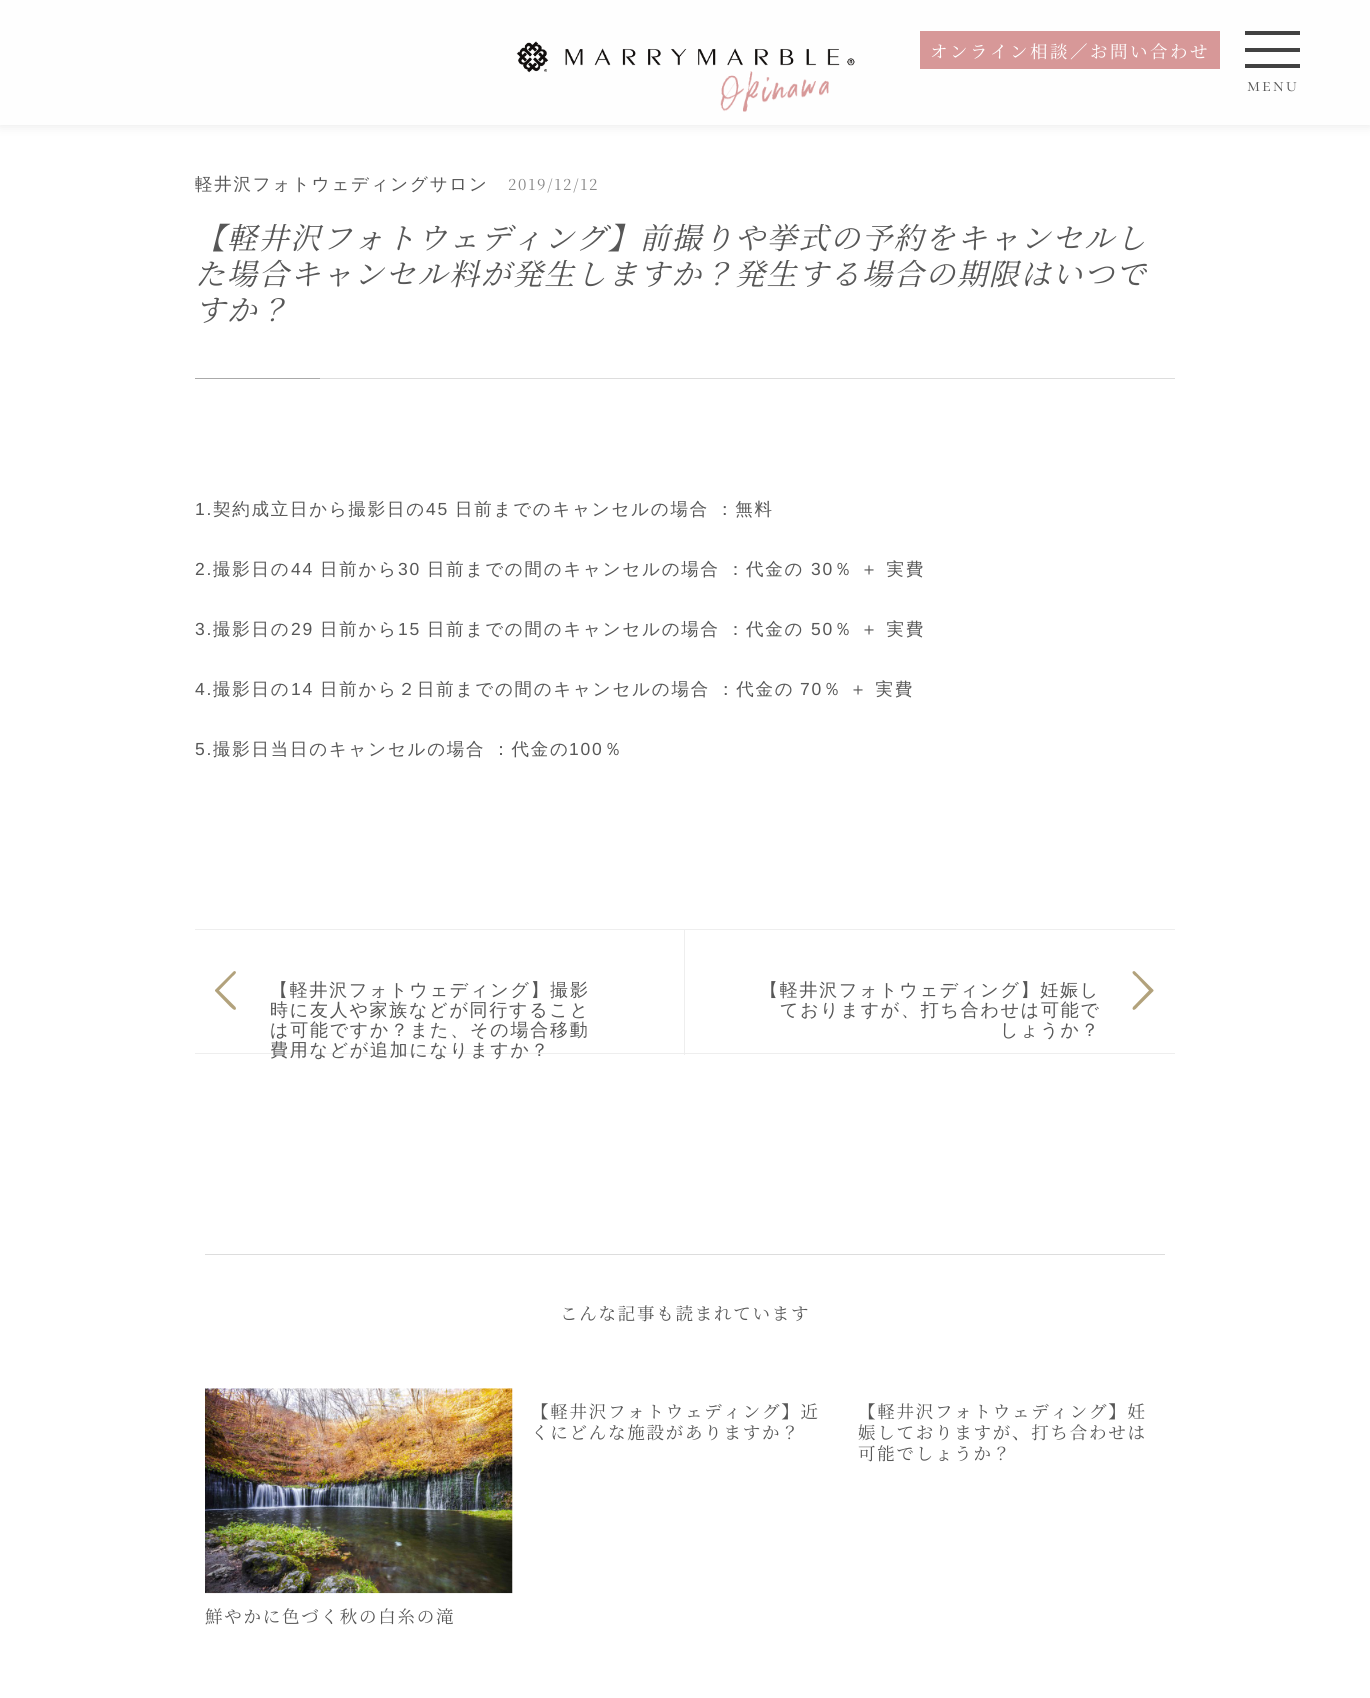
import math
import cairo



def draw_spaced(context, x, y, s, letter, word):
    context.move_to(x, y)
    for ch in s:
        context.show_text(ch)
        context.rel_move_to(letter + word * (ch == ' '), 0)


def rounded_rect(context, x, y, w, h, r):
    context.new_sub_path()
    for i, (u, v) in enumerate([(x + w - r, y + h - r), (x + r, y + h - r), (x + r, y + r), (x + w - r, y + r)]):
        context.arc(u, v, r, i * math.pi / 2, (i + 1) * math.pi / 2)
    context.close_path()


def draw_shadow(context, x, y, w, h, r, blur, alpha):
    context.push_group_with_content(cairo.Content.ALPHA)
    context.set_operator(cairo.Operator.SOURCE)
    for i in range(15, -16, -2):
        e = blur * i / 6
        if min(w, h) + 2 * e > 0:
            context.set_source_rgba(0, 0, 0, alpha * math.erfc((i - 1) / 8.5) / 2)
            rounded_rect(context, x - e, y - e, w + 2 * e, h + 2 * e, max(0, min(r + e + blur * .6, min(w, h) / 2 + e)))
            context.fill()
    context.mask(context.pop_group())


def draw_image(context, path, x, y, w, h):
    context.save()
    context.set_source_surface(cairo.ImageSurface.create_from_png(path), x, y)
    context.rectangle(x, y, w, h)
    context.fill()
    context.restore()


def draw(context):
    context.set_source_rgb(1, 1, 1)
    context.paint()
    context.set_source_rgb(0, 0, 0)
    draw_shadow(context, 0, 0, 1370, 125, 0, 6, 0.1)
    context.set_source_rgb(254 / 255, 254 / 255, 254 / 255)
    context.rectangle(0, 0, 1370, 125)
    context.fill()
    draw_image(context, "images/1.png", 516, 41, 339, 32)
    draw_image(context, "images/2.png", 720, 71, 109, 41)
    context.set_source_rgb(215 / 255, 152 / 255, 152 / 255)
    context.rectangle(920, 31, 300, 38)
    context.fill()
    context.set_source_rgb(65 / 255, 65 / 255, 65 / 255)
    context.rectangle(1245, 31, 55, 4)
    context.fill()
    context.rectangle(1245, 48, 55, 4)
    context.fill()
    context.rectangle(1245, 64, 55, 4)
    context.fill()
    context.set_source_rgb(221 / 255, 221 / 255, 221 / 255)
    context.rectangle(320, 378, 855, 1)
    context.fill()
    context.set_source_rgb(170 / 255, 170 / 255, 170 / 255)
    context.rectangle(195, 378, 125, 1)
    context.fill()
    context.set_source_rgb(238 / 255, 238 / 255, 238 / 255)
    context.rectangle(195, 929, 980, 1)
    context.fill()
    context.rectangle(195, 1053, 980, 1)
    context.fill()
    context.rectangle(684, 930, 1, 125)
    context.fill()
    context.set_source_rgb(178 / 255, 162 / 255, 124 / 255)
    context.new_path()
    context.move_to(235.5, 1007)
    context.line_to(236, 1008.5)
    context.curve_to(235, 1012.5, 230.5, 1006.5, 230, 1006.5)
    context.line_to(215, 991)
    context.line_to(215, 990)
    context.line_to(215.5, 989.5)
    context.line_to(233.5, 971.5)
    context.line_to(234.5, 971)
    context.curve_to(238.5, 972, 233, 976, 232.5, 976.5)
    context.line_to(219, 990.5)
    context.close_path()
    context.fill()
    context.new_path()
    context.move_to(1133, 1007)
    context.line_to(1149, 990.5)
    context.line_to(1136, 976.5)
    context.curve_to(1135, 976, 1130, 972, 1134, 971)
    context.line_to(1135, 971.5)
    context.line_to(1153, 989.5)
    context.line_to(1153.5, 990)
    context.line_to(1153.5, 991)
    context.line_to(1138, 1006.5)
    context.curve_to(1138, 1006.5, 1133.5, 1012.5, 1132.5, 1008.5)
    context.close_path()
    context.fill()
    context.set_source_rgb(221 / 255, 221 / 255, 221 / 255)
    context.rectangle(205, 1254, 960, 1)
    context.fill()
    draw_image(context, "images/3.png", 205, 1388, 308, 206)
    context.select_font_face("Noto Serif JP ExtraLight")
    context.set_font_size(17.5)
    context.set_source_rgb(1, 1, 1)
    draw_spaced(context, 930, 58, "オンライン相談／お問い合わせ", 2.5, 0)
    context.select_font_face("Cormorant SC")
    context.set_font_size(19)
    context.set_source_rgb(87 / 255, 87 / 255, 87 / 255)
    draw_spaced(context, 1247, 91, "menu", 2, 0)
    context.select_font_face("WenQuanYi Zen Hei Medium")
    context.set_font_size(17.5)
    draw_spaced(context, 195, 190, "軽井沢フォトウェディングサロン", 1.75, 0)
    context.select_font_face("Noto Serif JP ExtraLight")
    context.set_font_size(15)
    context.set_source_rgb(136 / 255, 136 / 255, 136 / 255)
    draw_spaced(context, 508, 190, "2019/12/12", 1.75, 0)
    context.select_font_face("Noto Serif JP ExtraLight", cairo.FontSlant.ITALIC)
    context.set_font_size(30)
    context.set_source_rgb(87 / 255, 87 / 255, 87 / 255)
    draw_spaced(context, 195, 249, "【軽井沢フォトウェディング】前撮りや挙式の予約をキャンセルし", 1.75, 0)
    draw_spaced(context, 195, 285, "た場合キャンセル料が発生しますか？発生する場合の期限はいつで", 1.75, 0)
    draw_spaced(context, 195, 321, "すか？", 1.75, 0)
    context.select_font_face("Liberation Sans")
    context.set_font_size(17.5)
    draw_spaced(context, 195, 515, "1.", 1.75, 0)
    context.select_font_face("WenQuanYi Zen Hei Medium")
    draw_spaced(context, 213, 515, "契約成立日から撮影日の", 1.75, 0)
    context.select_font_face("Liberation Sans")
    draw_spaced(context, 426, 515, "45", 1.75, 0)
    context.select_font_face("WenQuanYi Zen Hei Medium")
    draw_spaced(context, 455, 515, "日前までのキャンセルの場合 ：無料", 1.75, 0)
    context.select_font_face("Liberation Sans")
    draw_spaced(context, 195, 575, "2.", 1.75, 0)
    context.select_font_face("WenQuanYi Zen Hei Medium")
    draw_spaced(context, 213, 575, "撮影日の", 1.75, 0)
    context.select_font_face("Liberation Sans")
    draw_spaced(context, 291, 575, "44", 1.75, 0)
    context.select_font_face("WenQuanYi Zen Hei Medium")
    draw_spaced(context, 320, 575, "日前から", 1.75, 0)
    context.select_font_face("Liberation Sans")
    draw_spaced(context, 398, 575, "30", 1.75, 0)
    context.select_font_face("WenQuanYi Zen Hei Medium")
    draw_spaced(context, 427, 575, "日前までの間のキャンセルの場合 ：代金の", 1.75, 0)
    context.select_font_face("Liberation Sans")
    draw_spaced(context, 811, 575, "30", 1.75, 0)
    context.select_font_face("WenQuanYi Zen Hei Medium")
    draw_spaced(context, 834, 575, "％ ＋ 実費", 1.75, 0)
    context.select_font_face("Liberation Sans")
    draw_spaced(context, 195, 635, "3.", 1.75, 0)
    context.select_font_face("WenQuanYi Zen Hei Medium")
    draw_spaced(context, 213, 635, "撮影日の", 1.75, 0)
    context.select_font_face("Liberation Sans")
    draw_spaced(context, 291, 635, "29", 1.75, 0)
    context.select_font_face("WenQuanYi Zen Hei Medium")
    draw_spaced(context, 320, 635, "日前から", 1.75, 0)
    context.select_font_face("Liberation Sans")
    draw_spaced(context, 398, 635, "15", 1.75, 0)
    context.select_font_face("WenQuanYi Zen Hei Medium")
    draw_spaced(context, 427, 635, "日前までの間のキャンセルの場合 ：代金の", 1.75, 0)
    context.select_font_face("Liberation Sans")
    draw_spaced(context, 811, 635, "50", 1.75, 0)
    context.select_font_face("WenQuanYi Zen Hei Medium")
    draw_spaced(context, 834, 635, "％ ＋ 実費", 1.75, 0)
    context.select_font_face("Liberation Sans")
    draw_spaced(context, 195, 695, "4.", 1.75, 0)
    context.select_font_face("WenQuanYi Zen Hei Medium")
    draw_spaced(context, 213, 695, "撮影日の", 1.75, 0)
    context.select_font_face("Liberation Sans")
    draw_spaced(context, 291, 695, "14", 1.75, 0)
    context.select_font_face("WenQuanYi Zen Hei Medium")
    draw_spaced(context, 320, 695, "日前から２日前までの間のキャンセルの場合 ：代金の", 1.75, 0)
    context.select_font_face("Liberation Sans")
    draw_spaced(context, 800, 695, "70", 1.75, 0)
    context.select_font_face("WenQuanYi Zen Hei Medium")
    draw_spaced(context, 823, 695, "％ ＋ 実費", 1.75, 0)
    context.select_font_face("Liberation Sans")
    draw_spaced(context, 195, 755, "5.", 1.75, 0)
    context.select_font_face("WenQuanYi Zen Hei Medium")
    draw_spaced(context, 213, 755, "撮影日当日のキャンセルの場合 ：代金の", 1.75, 0)
    context.select_font_face("Liberation Sans")
    draw_spaced(context, 569, 755, "100", 1.75, 0)
    context.select_font_face("WenQuanYi Zen Hei Medium")
    draw_spaced(context, 604, 755, "％", 1.75, 0)
    context.set_font_size(18)
    draw_spaced(context, 270, 996, "【軽井沢フォトウェディング】撮影", 1.75, 0)
    draw_spaced(context, 270, 1016, "時に友人や家族などが同行すること", 1.75, 0)
    draw_spaced(context, 270, 1036, "は可能ですか？また、その場合移動", 1.75, 0)
    draw_spaced(context, 270, 1056, "費用などが追加になりますか？", 1.75, 0)
    draw_spaced(context, 760, 996, "【軽井沢フォトウェディング】妊娠し", 1.75, 0)
    draw_spaced(context, 780, 1016, "ておりますが、打ち合わせは可能で", 1.75, 0)
    draw_spaced(context, 1000, 1036, "しょうか？", 1.75, 0)
    context.select_font_face("Noto Serif JP ExtraLight")
    context.set_font_size(17.5)
    draw_spaced(context, 560, 1320, "こんな記事も読まれています", 1.75, 0)
    draw_spaced(context, 531, 1418, "【軽井沢フォトウェディング】近", 1.75, 0)
    draw_spaced(context, 531, 1439, "くにどんな施設がありますか？", 1.75, 0)
    draw_spaced(context, 858, 1418, "【軽井沢フォトウェディング】妊", 1.75, 0)
    draw_spaced(context, 858, 1439, "娠しておりますが、打ち合わせは", 1.75, 0)
    draw_spaced(context, 858, 1460, "可能でしょうか？", 1.75, 0)
    draw_spaced(context, 205, 1623, "鮮やかに色づく秋の白糸の滝", 1.75, 0)


surface = cairo.ImageSurface(cairo.Format.RGB24, 1370, 1698)
context = cairo.Context(surface)
options = cairo.FontOptions()
options.set_hint_metrics(cairo.HintMetrics.OFF)
options.set_hint_style(cairo.HintStyle.NONE)
context.set_font_options(options)
context.set_miter_limit(4)
draw(context)
surface.write_to_png("out.png")
